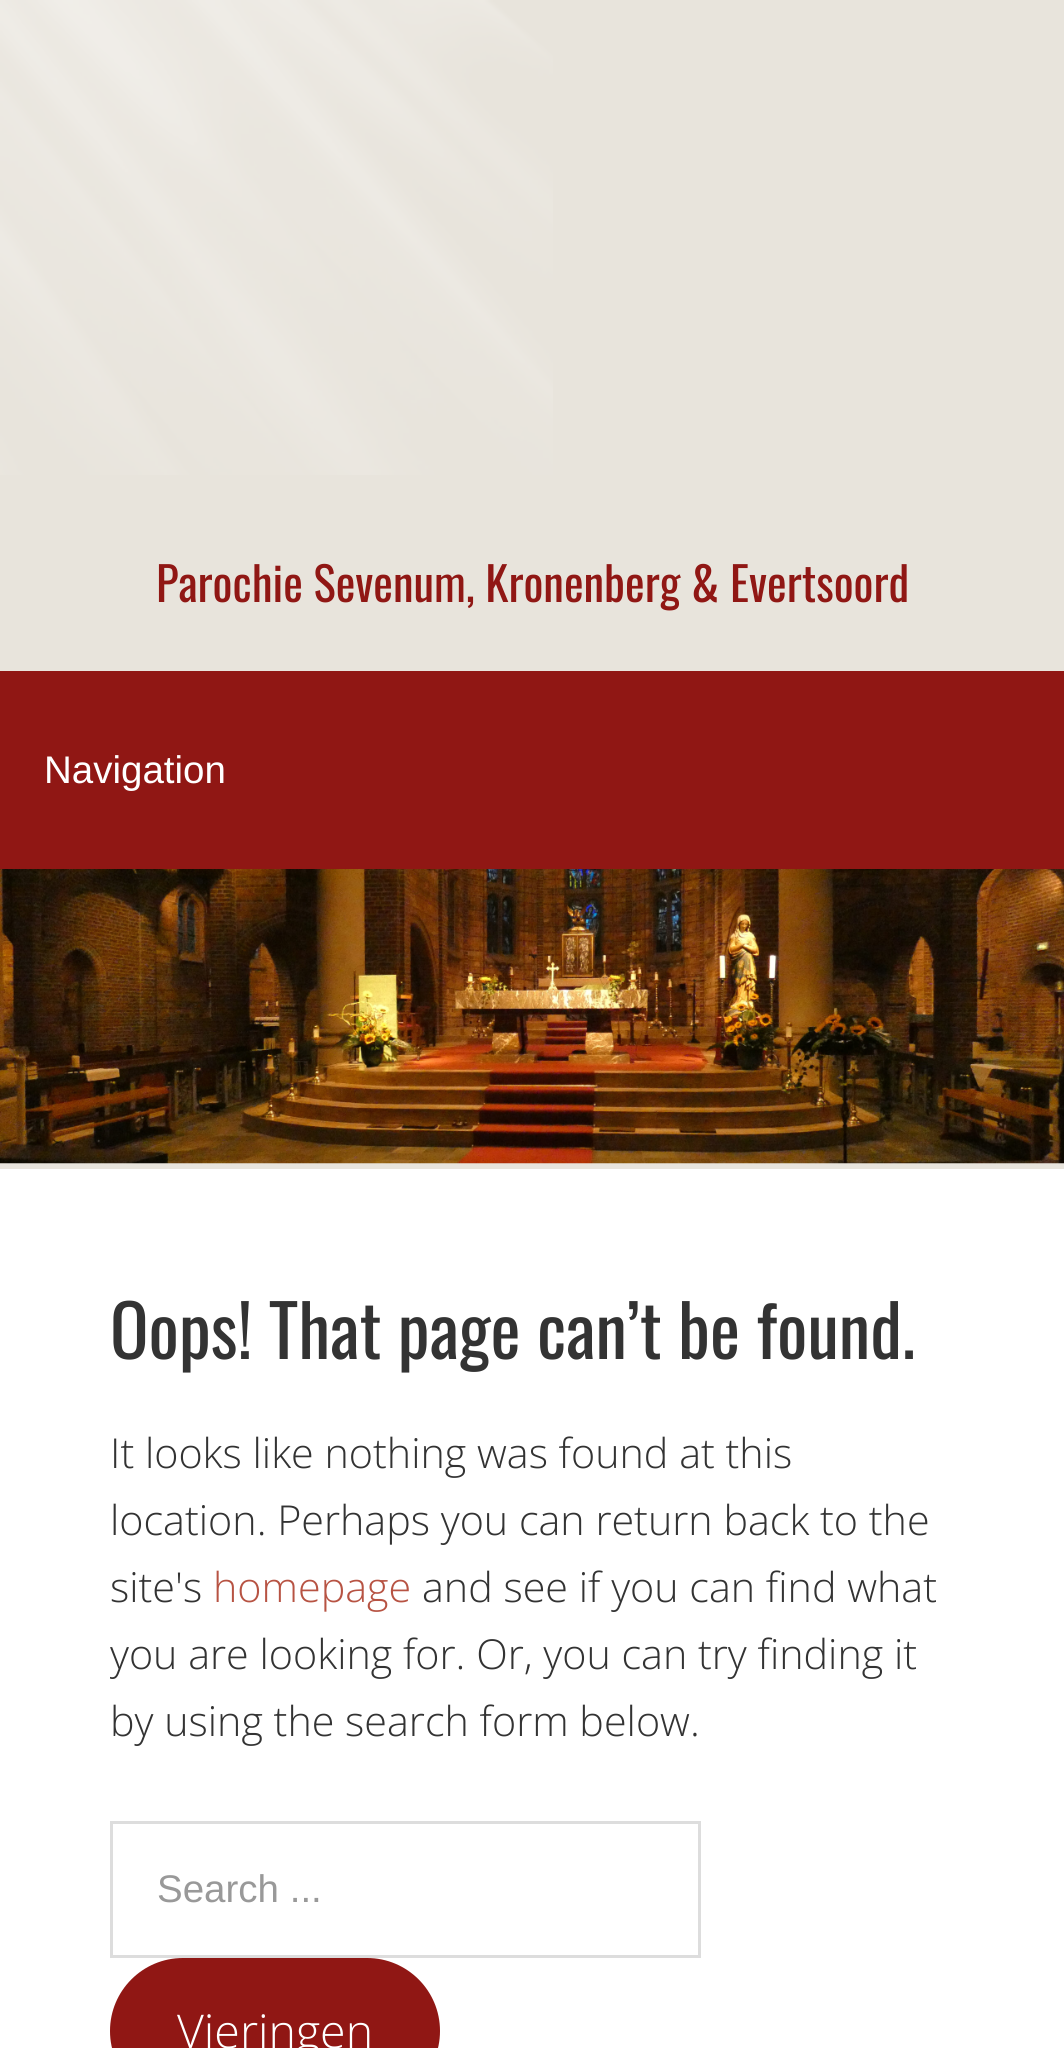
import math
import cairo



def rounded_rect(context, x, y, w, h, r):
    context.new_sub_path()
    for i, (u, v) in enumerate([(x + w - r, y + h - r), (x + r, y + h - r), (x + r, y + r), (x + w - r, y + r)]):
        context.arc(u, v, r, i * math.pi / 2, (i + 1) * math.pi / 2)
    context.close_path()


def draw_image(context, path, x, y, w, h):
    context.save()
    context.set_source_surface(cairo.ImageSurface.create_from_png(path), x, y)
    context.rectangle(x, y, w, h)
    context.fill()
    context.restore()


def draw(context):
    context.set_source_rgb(232 / 255, 228 / 255, 220 / 255)
    context.paint()
    draw_image(context, "images/1.png", 0, 0, 553, 475)
    context.set_source_rgb(144 / 255, 23 / 255, 20 / 255)
    context.rectangle(0, 671, 1064, 198)
    context.fill()
    draw_image(context, "images/2.png", 0, 869, 1064, 295)
    context.set_source_rgb(1, 1, 1)
    context.rectangle(0, 1169, 1064, 879)
    context.fill()
    context.rectangle(111.5, 1822.5, 588, 134)
    context.set_source_rgb(221 / 255, 221 / 255, 221 / 255)
    context.set_line_width(3)
    context.stroke()
    context.set_source_rgb(144 / 255, 23 / 255, 20 / 255)
    rounded_rect(context, 110, 1958, 330, 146, 73)
    context.fill()
    context.select_font_face("Oswald")
    context.set_font_size(46.75)
    context.move_to(156, 602)
    context.show_text("Parochie Sevenum, Kronenberg & Evertsoord")
    context.select_font_face("Liberation Sans")
    context.set_font_size(38.5)
    context.set_source_rgb(1, 1, 1)
    context.move_to(44, 783)
    context.show_text("Navigation")
    context.select_font_face("Oswald")
    context.set_font_size(71.5)
    context.set_source_rgb(51 / 255, 51 / 255, 51 / 255)
    context.move_to(110, 1359)
    context.show_text("Oops! That page can’t be found.")
    context.select_font_face("Open Sans Light")
    context.set_font_size(41.25)
    context.move_to(110, 1468)
    context.show_text("It looks like nothing was found at this")
    context.move_to(110, 1535)
    context.show_text("location. Perhaps you can return back to the")
    context.move_to(110, 1602)
    context.show_text("site's")
    context.set_source_rgb(183 / 255, 83 / 255, 67 / 255)
    context.move_to(213, 1602)
    context.show_text("homepage")
    context.set_source_rgb(51 / 255, 51 / 255, 51 / 255)
    context.move_to(422, 1602)
    context.show_text("and see if you can find what")
    context.move_to(110, 1669)
    context.show_text("you are looking for. Or, you can try finding it")
    context.move_to(110, 1736)
    context.show_text("by using the search form below.")
    context.select_font_face("Liberation Sans")
    context.set_font_size(38.5)
    context.set_source_rgb(153 / 255, 153 / 255, 153 / 255)
    context.move_to(157, 1902)
    context.show_text("Search ...")
    context.select_font_face("Open Sans Light")
    context.set_font_size(46.5)
    context.set_source_rgb(1, 1, 1)
    context.move_to(177, 2048)
    context.show_text("Vieringen")


surface = cairo.ImageSurface(cairo.Format.RGB24, 1064, 2048)
context = cairo.Context(surface)
options = cairo.FontOptions()
options.set_hint_metrics(cairo.HintMetrics.OFF)
options.set_hint_style(cairo.HintStyle.NONE)
context.set_font_options(options)
context.set_miter_limit(4)
draw(context)
surface.write_to_png("out.png")
